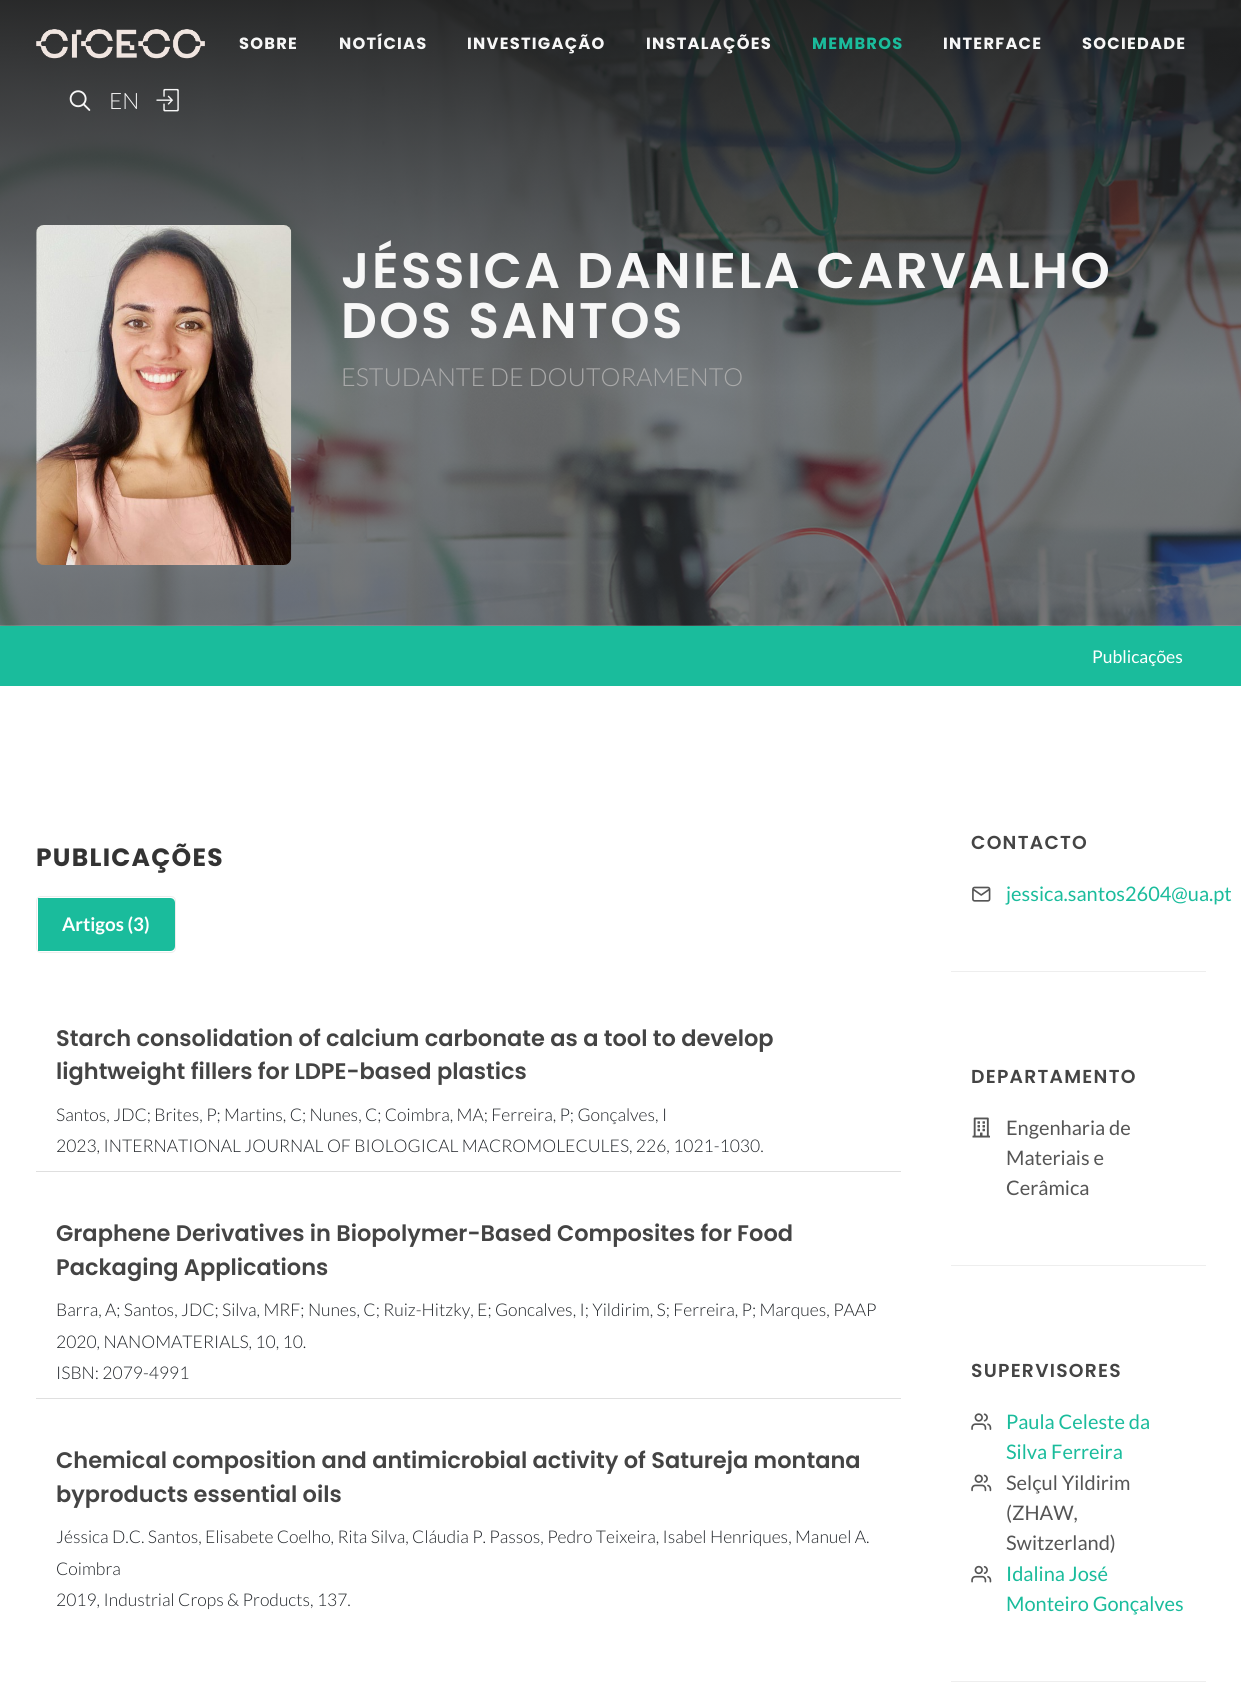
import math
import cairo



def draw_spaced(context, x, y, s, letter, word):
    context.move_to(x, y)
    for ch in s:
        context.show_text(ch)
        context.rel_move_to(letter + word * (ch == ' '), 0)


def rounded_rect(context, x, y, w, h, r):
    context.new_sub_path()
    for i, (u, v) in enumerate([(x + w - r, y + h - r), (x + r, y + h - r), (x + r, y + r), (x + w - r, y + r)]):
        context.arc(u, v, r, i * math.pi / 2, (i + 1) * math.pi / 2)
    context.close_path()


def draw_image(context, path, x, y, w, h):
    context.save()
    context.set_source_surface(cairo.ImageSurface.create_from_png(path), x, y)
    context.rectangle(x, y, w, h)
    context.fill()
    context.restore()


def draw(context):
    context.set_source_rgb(1, 1, 1)
    context.paint()
    draw_image(context, "images/4.png", 0, 0, 1241, 626)
    draw_image(context, "images/1.png", 36, 29, 169, 30)
    draw_image(context, "images/2.png", 69, 90, 22, 21)
    draw_image(context, "images/3.png", 156, 88, 23, 24)
    context.set_source_rgba(1, 1, 1, 0.15)
    context.rectangle(0, 625, 1241, 1)
    context.fill()
    draw_image(context, "images/5.png", 36, 225, 256, 340)
    context.set_source_rgb(26 / 255, 188 / 255, 156 / 255)
    context.rectangle(0, 626, 1241, 60)
    context.fill()
    rounded_rect(context, 36.5, 896.5, 139, 56, 4.5)
    context.set_source_rgb(237 / 255, 237 / 255, 237 / 255)
    context.set_line_width(1)
    context.stroke()
    context.set_source_rgb(26 / 255, 188 / 255, 156 / 255)
    context.new_path()
    context.move_to(38, 898)
    context.line_to(170, 898)
    context.curve_to(173, 898, 175, 900, 175, 903)
    context.line_to(175, 946)
    context.curve_to(175, 949, 173, 951, 170, 951)
    context.line_to(38, 951)
    context.close_path()
    context.fill()
    context.set_source_rgb(223 / 255, 223 / 255, 223 / 255)
    context.rectangle(36, 1171, 865, 1)
    context.fill()
    context.rectangle(36, 1398, 865, 1)
    context.fill()
    draw_image(context, "images/6.png", 972, 886, 19, 16)
    context.set_source_rgb(238 / 255, 238 / 255, 238 / 255)
    context.rectangle(951, 971, 255, 1)
    context.fill()
    draw_image(context, "images/7.png", 972, 1117, 18, 21)
    context.rectangle(951, 1265, 255, 1)
    context.fill()
    draw_image(context, "images/8.png", 971, 1413, 21, 17)
    draw_image(context, "images/9.png", 971, 1474, 21, 18)
    draw_image(context, "images/10.png", 971, 1565, 21, 18)
    context.rectangle(951, 1681, 255, 1)
    context.fill()
    context.select_font_face("Poppins", cairo.FontSlant.NORMAL, cairo.FontWeight.BOLD)
    context.set_font_size(16.25)
    context.set_source_rgb(247 / 255, 247 / 255, 247 / 255)
    draw_spaced(context, 239, 49, "SOBRE", 1.25, 0)
    draw_spaced(context, 339, 49, "NOTÍCIAS", 1.25, 0)
    draw_spaced(context, 467, 49, "INVESTIGAÇÃO", 1.25, 0)
    draw_spaced(context, 646, 49, "INSTALAÇÕES", 1.25, 0)
    context.set_source_rgb(26 / 255, 188 / 255, 156 / 255)
    draw_spaced(context, 812, 49, "MEMBROS", 1.25, 0)
    context.set_source_rgb(247 / 255, 247 / 255, 247 / 255)
    draw_spaced(context, 943, 49, "INTERFACE", 1.25, 0)
    draw_spaced(context, 1082, 49, "SOCIEDADE", 1.25, 0)
    context.select_font_face("Lato Light")
    context.set_font_size(22.5)
    context.move_to(109, 109)
    context.show_text("EN")
    context.select_font_face("Poppins SemiBold")
    context.set_font_size(50)
    draw_spaced(context, 341, 288, "JÉSSICA DANIELA CARVALHO", 2.5, 0)
    draw_spaced(context, 341, 338, "DOS SANTOS", 2.5, 0)
    context.select_font_face("Lato Light")
    context.set_font_size(25)
    context.set_source_rgb(170 / 255, 170 / 255, 170 / 255)
    context.move_to(341, 386)
    context.show_text("ESTUDANTE DE DOUTORAMENTO")
    context.select_font_face("Lato")
    context.set_font_size(17.5)
    context.set_source_rgb(1, 1, 1)
    context.move_to(1092, 663)
    context.show_text("Publicações")
    context.select_font_face("Poppins", cairo.FontSlant.NORMAL, cairo.FontWeight.BOLD)
    context.set_font_size(25)
    context.set_source_rgb(51 / 255, 51 / 255, 51 / 255)
    draw_spaced(context, 36, 866, "PUBLICAÇÕES", 1.25, 0)
    context.select_font_face("Lato", cairo.FontSlant.NORMAL, cairo.FontWeight.BOLD)
    context.set_font_size(18.75)
    context.set_source_rgb(1, 1, 1)
    context.move_to(62, 931)
    context.show_text("Artigos (3)")
    context.select_font_face("Poppins SemiBold")
    context.set_font_size(22.5)
    context.set_source_rgb(68 / 255, 68 / 255, 68 / 255)
    context.move_to(56, 1046)
    context.show_text("Starch consolidation of calcium carbonate as a tool to develop")
    context.move_to(56, 1079)
    context.show_text("lightweight fillers for LDPE-based plastics")
    context.select_font_face("Lato Light")
    context.set_font_size(17.5)
    context.set_source_rgb(33 / 255, 37 / 255, 41 / 255)
    context.move_to(56, 1121)
    context.show_text("Santos, JDC; Brites, P; Martins, C; Nunes, C; Coimbra, MA; Ferreira, P; Gonçalves, I")
    context.move_to(56, 1152)
    context.show_text("2023, INTERNATIONAL JOURNAL OF BIOLOGICAL MACROMOLECULES, 226, 1021-1030.")
    context.select_font_face("Poppins SemiBold")
    context.set_font_size(22.5)
    context.set_source_rgb(68 / 255, 68 / 255, 68 / 255)
    context.move_to(56, 1241)
    context.show_text("Graphene Derivatives in Biopolymer-Based Composites for Food")
    context.move_to(56, 1275)
    context.show_text("Packaging Applications")
    context.select_font_face("Lato Light")
    context.set_font_size(17.5)
    context.set_source_rgb(33 / 255, 37 / 255, 41 / 255)
    context.move_to(56, 1316)
    context.show_text("Barra, A; Santos, JDC; Silva, MRF; Nunes, C; Ruiz-Hitzky, E; Goncalves, I; Yildirim, S; Ferreira, P; Marques, PAAP")
    context.move_to(56, 1348)
    context.show_text("2020, NANOMATERIALS, 10, 10.")
    context.move_to(56, 1379)
    context.show_text("ISBN: 2079-4991")
    context.select_font_face("Poppins SemiBold")
    context.set_font_size(22.5)
    context.set_source_rgb(68 / 255, 68 / 255, 68 / 255)
    context.move_to(56, 1468)
    context.show_text("Chemical composition and antimicrobial activity of Satureja montana")
    context.move_to(56, 1502)
    context.show_text("byproducts essential oils")
    context.select_font_face("Lato Light")
    context.set_font_size(17.5)
    context.set_source_rgb(33 / 255, 37 / 255, 41 / 255)
    context.move_to(56, 1543)
    context.show_text("Jéssica D.C. Santos, Elisabete Coelho, Rita Silva, Cláudia P. Passos, Pedro Teixeira, Isabel Henriques, Manuel A.")
    context.move_to(56, 1575)
    context.show_text("Coimbra")
    context.move_to(56, 1606)
    context.show_text("2019, Industrial Crops & Products, 137.")
    context.select_font_face("Poppins SemiBold")
    context.set_font_size(18.75)
    context.set_source_rgb(68 / 255, 68 / 255, 68 / 255)
    draw_spaced(context, 971, 849, "CONTACTO", 1.25, 0)
    context.select_font_face("Lato")
    context.set_font_size(20)
    context.set_source_rgb(26 / 255, 188 / 255, 156 / 255)
    context.move_to(1006, 901)
    context.show_text("jessica.santos2604@ua.pt")
    context.select_font_face("Poppins SemiBold")
    context.set_font_size(18.75)
    context.set_source_rgb(68 / 255, 68 / 255, 68 / 255)
    draw_spaced(context, 971, 1083, "DEPARTAMENTO", 1.25, 0)
    context.select_font_face("Lato")
    context.set_font_size(20)
    context.set_source_rgb(85 / 255, 85 / 255, 85 / 255)
    context.move_to(1006, 1135)
    context.show_text("Engenharia de")
    context.move_to(1006, 1165)
    context.show_text("Materiais e")
    context.move_to(1006, 1195)
    context.show_text("Cerâmica")
    context.select_font_face("Poppins SemiBold")
    context.set_font_size(18.75)
    context.set_source_rgb(68 / 255, 68 / 255, 68 / 255)
    draw_spaced(context, 971, 1377, "SUPERVISORES", 1.25, 0)
    context.select_font_face("Lato")
    context.set_font_size(20)
    context.set_source_rgb(26 / 255, 188 / 255, 156 / 255)
    context.move_to(1006, 1429)
    context.show_text("Paula Celeste da")
    context.move_to(1006, 1459)
    context.show_text("Silva Ferreira")
    context.set_source_rgb(85 / 255, 85 / 255, 85 / 255)
    context.move_to(1006, 1490)
    context.show_text("Selçul Yildirim")
    context.move_to(1006, 1520)
    context.show_text("(ZHAW,")
    context.move_to(1006, 1550)
    context.show_text("Switzerland)")
    context.set_source_rgb(26 / 255, 188 / 255, 156 / 255)
    context.move_to(1006, 1581)
    context.show_text("Idalina José")
    context.move_to(1006, 1611)
    context.show_text("Monteiro Gonçalves")


surface = cairo.ImageSurface(cairo.Format.RGB24, 1241, 1696)
context = cairo.Context(surface)
options = cairo.FontOptions()
options.set_hint_metrics(cairo.HintMetrics.OFF)
options.set_hint_style(cairo.HintStyle.NONE)
context.set_font_options(options)
context.set_miter_limit(4)
draw(context)
surface.write_to_png("out.png")
